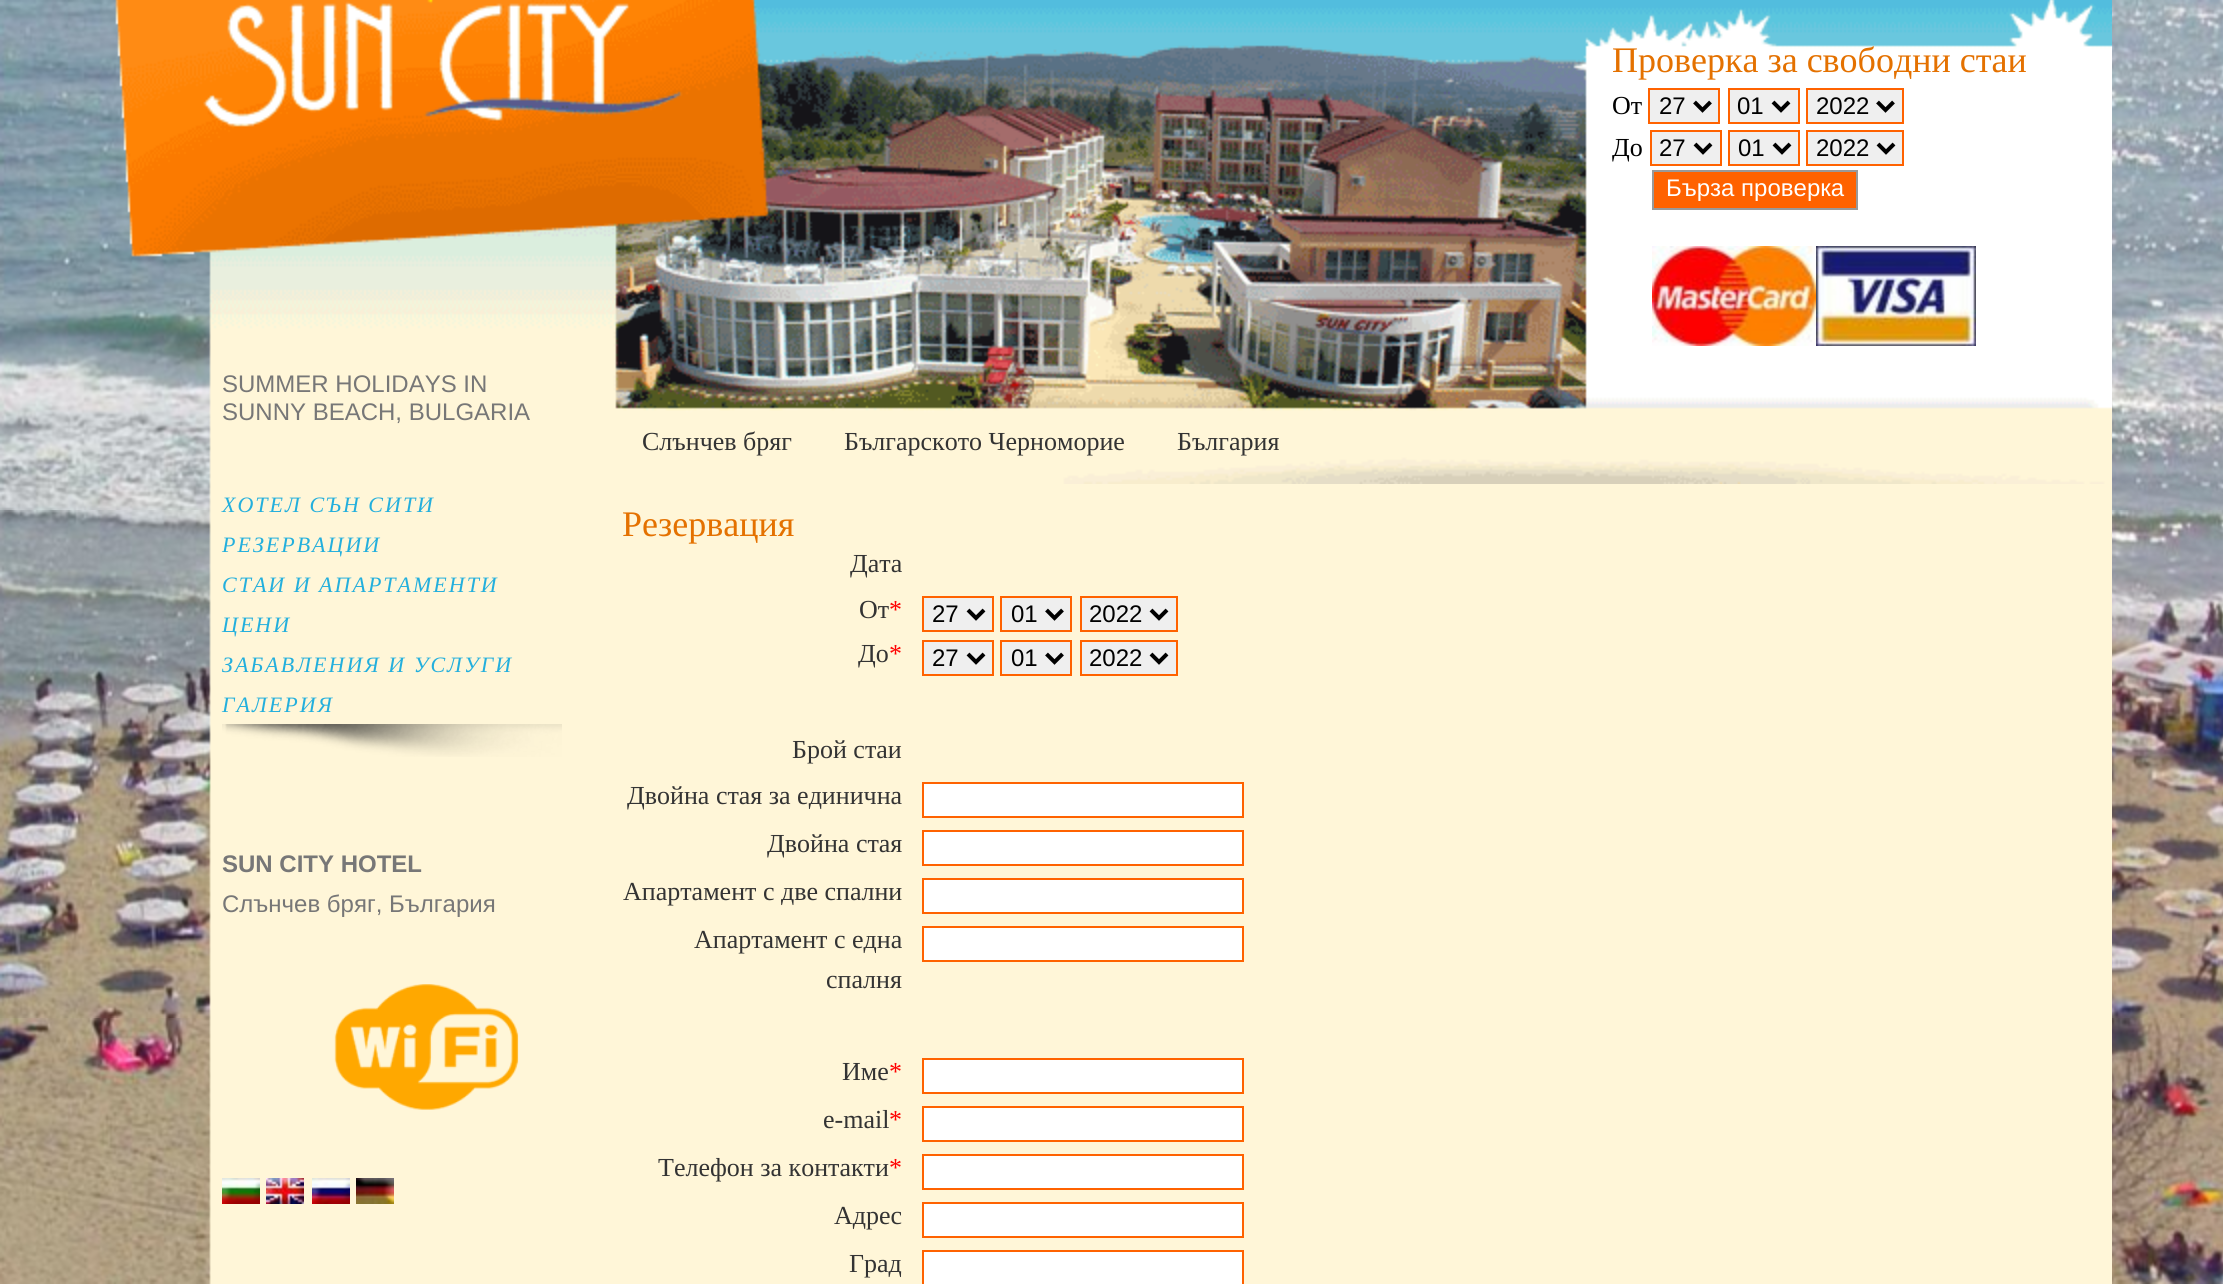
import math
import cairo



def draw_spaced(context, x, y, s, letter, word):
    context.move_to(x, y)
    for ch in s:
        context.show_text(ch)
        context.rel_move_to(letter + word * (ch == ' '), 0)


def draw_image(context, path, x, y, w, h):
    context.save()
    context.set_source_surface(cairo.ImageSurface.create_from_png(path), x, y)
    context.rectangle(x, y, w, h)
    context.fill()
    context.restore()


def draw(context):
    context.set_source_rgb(1, 1, 1)
    context.paint()
    draw_image(context, "images/1.png", 0, 0, 2223, 1284)
    draw_image(context, "images/2.png", 115, 0, 1997, 484)
    context.set_source_rgb(239 / 255, 239 / 255, 239 / 255)
    context.rectangle(1649, 89, 70, 34)
    context.fill_preserve()
    context.set_source_rgb(1, 98 / 255, 0)
    context.stroke()
    context.new_path()
    context.move_to(1694.5, 102)
    context.line_to(1702.5, 110)
    context.line_to(1710.5, 102)
    context.set_source_rgb(0, 0, 0)
    context.set_line_width(4)
    context.stroke()
    context.set_source_rgb(239 / 255, 239 / 255, 239 / 255)
    context.rectangle(1729, 89, 70, 34)
    context.fill_preserve()
    context.set_source_rgb(1, 98 / 255, 0)
    context.set_line_width(2)
    context.stroke()
    context.new_path()
    context.move_to(1773, 102)
    context.line_to(1781, 110)
    context.line_to(1789, 102)
    context.set_source_rgb(0, 0, 0)
    context.set_line_width(4)
    context.stroke()
    context.set_source_rgb(239 / 255, 239 / 255, 239 / 255)
    context.rectangle(1807, 89, 96, 34)
    context.fill_preserve()
    context.set_source_rgb(1, 98 / 255, 0)
    context.set_line_width(2)
    context.stroke()
    context.new_path()
    context.move_to(1877.5, 102)
    context.line_to(1885.5, 110)
    context.line_to(1893.5, 102)
    context.set_source_rgb(0, 0, 0)
    context.set_line_width(4)
    context.stroke()
    context.set_source_rgb(239 / 255, 239 / 255, 239 / 255)
    context.rectangle(1651, 131, 70, 34)
    context.fill_preserve()
    context.set_source_rgb(1, 98 / 255, 0)
    context.set_line_width(2)
    context.stroke()
    context.new_path()
    context.move_to(1695, 144)
    context.line_to(1703, 152)
    context.line_to(1711, 144)
    context.set_source_rgb(0, 0, 0)
    context.set_line_width(4)
    context.stroke()
    context.set_source_rgb(239 / 255, 239 / 255, 239 / 255)
    context.rectangle(1729, 131, 70, 34)
    context.fill_preserve()
    context.set_source_rgb(1, 98 / 255, 0)
    context.set_line_width(2)
    context.stroke()
    context.new_path()
    context.move_to(1774, 144)
    context.line_to(1782, 152)
    context.line_to(1790, 144)
    context.set_source_rgb(0, 0, 0)
    context.set_line_width(4)
    context.stroke()
    context.set_source_rgb(239 / 255, 239 / 255, 239 / 255)
    context.rectangle(1807, 131, 96, 34)
    context.fill_preserve()
    context.set_source_rgb(1, 98 / 255, 0)
    context.set_line_width(2)
    context.stroke()
    context.new_path()
    context.move_to(1878, 144)
    context.line_to(1886, 152)
    context.line_to(1894, 144)
    context.set_source_rgb(0, 0, 0)
    context.set_line_width(4)
    context.stroke()
    context.set_source_rgb(1, 98 / 255, 0)
    context.rectangle(1653, 171, 204, 38)
    context.fill_preserve()
    context.set_source_rgb(153 / 255, 153 / 255, 153 / 255)
    context.set_line_width(2)
    context.stroke()
    draw_image(context, "images/3.png", 1652, 246, 164, 100)
    draw_image(context, "images/4.png", 1816, 246, 160, 100)
    draw_image(context, "images/5.png", 209, 484, 1903, 800)
    draw_image(context, "images/6.png", 222, 724, 340, 33)
    draw_image(context, "images/7.png", 334, 984, 185, 126)
    draw_image(context, "images/8.png", 222, 1178, 38, 26)
    draw_image(context, "images/9.png", 266, 1178, 38, 26)
    draw_image(context, "images/10.png", 312, 1178, 38, 26)
    draw_image(context, "images/11.png", 356, 1178, 38, 26)
    context.set_source_rgb(239 / 255, 239 / 255, 239 / 255)
    context.rectangle(923, 597, 70, 34)
    context.fill_preserve()
    context.set_source_rgb(1, 98 / 255, 0)
    context.stroke()
    context.new_path()
    context.move_to(968, 610)
    context.line_to(976, 618)
    context.line_to(984, 610)
    context.set_source_rgb(0, 0, 0)
    context.set_line_width(4)
    context.stroke()
    context.set_source_rgb(239 / 255, 239 / 255, 239 / 255)
    context.rectangle(1001, 597, 70, 34)
    context.fill_preserve()
    context.set_source_rgb(1, 98 / 255, 0)
    context.set_line_width(2)
    context.stroke()
    context.new_path()
    context.move_to(1046.5, 610)
    context.line_to(1054.5, 618)
    context.line_to(1062.5, 610)
    context.set_source_rgb(0, 0, 0)
    context.set_line_width(4)
    context.stroke()
    context.set_source_rgb(239 / 255, 239 / 255, 239 / 255)
    context.rectangle(1081, 597, 96, 34)
    context.fill_preserve()
    context.set_source_rgb(1, 98 / 255, 0)
    context.set_line_width(2)
    context.stroke()
    context.new_path()
    context.move_to(1151, 610)
    context.line_to(1159, 618)
    context.line_to(1167, 610)
    context.set_source_rgb(0, 0, 0)
    context.set_line_width(4)
    context.stroke()
    context.set_source_rgb(239 / 255, 239 / 255, 239 / 255)
    context.rectangle(923, 641, 70, 34)
    context.fill_preserve()
    context.set_source_rgb(1, 98 / 255, 0)
    context.set_line_width(2)
    context.stroke()
    context.new_path()
    context.move_to(968, 654)
    context.line_to(976, 662)
    context.line_to(984, 654)
    context.set_source_rgb(0, 0, 0)
    context.set_line_width(4)
    context.stroke()
    context.set_source_rgb(239 / 255, 239 / 255, 239 / 255)
    context.rectangle(1001, 641, 70, 34)
    context.fill_preserve()
    context.set_source_rgb(1, 98 / 255, 0)
    context.set_line_width(2)
    context.stroke()
    context.new_path()
    context.move_to(1046.5, 654)
    context.line_to(1054.5, 662)
    context.line_to(1062.5, 654)
    context.set_source_rgb(0, 0, 0)
    context.set_line_width(4)
    context.stroke()
    context.set_source_rgb(239 / 255, 239 / 255, 239 / 255)
    context.rectangle(1081, 641, 96, 34)
    context.fill_preserve()
    context.set_source_rgb(1, 98 / 255, 0)
    context.set_line_width(2)
    context.stroke()
    context.new_path()
    context.move_to(1151, 654)
    context.line_to(1159, 662)
    context.line_to(1167, 654)
    context.set_source_rgb(0, 0, 0)
    context.set_line_width(4)
    context.stroke()
    context.set_source_rgb(1, 1, 1)
    context.rectangle(923, 783, 320, 34)
    context.fill_preserve()
    context.set_source_rgb(1, 98 / 255, 0)
    context.set_line_width(2)
    context.stroke()
    context.set_source_rgb(1, 1, 1)
    context.rectangle(923, 831, 320, 34)
    context.fill_preserve()
    context.set_source_rgb(1, 98 / 255, 0)
    context.stroke()
    context.set_source_rgb(1, 1, 1)
    context.rectangle(923, 879, 320, 34)
    context.fill_preserve()
    context.set_source_rgb(1, 98 / 255, 0)
    context.stroke()
    context.set_source_rgb(1, 1, 1)
    context.rectangle(923, 927, 320, 34)
    context.fill_preserve()
    context.set_source_rgb(1, 98 / 255, 0)
    context.stroke()
    context.set_source_rgb(1, 1, 1)
    context.rectangle(923, 1059, 320, 34)
    context.fill_preserve()
    context.set_source_rgb(1, 98 / 255, 0)
    context.stroke()
    context.set_source_rgb(1, 1, 1)
    context.rectangle(923, 1107, 320, 34)
    context.fill_preserve()
    context.set_source_rgb(1, 98 / 255, 0)
    context.stroke()
    context.set_source_rgb(1, 1, 1)
    context.rectangle(923, 1155, 320, 34)
    context.fill_preserve()
    context.set_source_rgb(1, 98 / 255, 0)
    context.stroke()
    context.set_source_rgb(1, 1, 1)
    context.rectangle(923, 1203, 320, 34)
    context.fill_preserve()
    context.set_source_rgb(1, 98 / 255, 0)
    context.stroke()
    context.set_source_rgb(1, 1, 1)
    context.rectangle(923, 1251, 320, 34)
    context.fill_preserve()
    context.set_source_rgb(1, 98 / 255, 0)
    context.stroke()
    context.select_font_face("Liberation Serif")
    context.set_font_size(36)
    context.set_source_rgb(228 / 255, 113 / 255, 0)
    context.move_to(1612, 72)
    context.show_text("Проверка за свободни стаи")
    context.set_font_size(26)
    context.set_source_rgb(0, 0, 0)
    context.move_to(1612, 114)
    context.show_text("От")
    context.select_font_face("Liberation Sans")
    context.set_font_size(24)
    context.move_to(1659, 114)
    context.show_text("27")
    context.move_to(1737, 114)
    context.show_text("01")
    context.move_to(1816, 114)
    context.show_text("2022")
    context.select_font_face("Liberation Serif")
    context.set_font_size(26)
    context.move_to(1612, 156)
    context.show_text("До")
    context.select_font_face("Liberation Sans")
    context.set_font_size(24)
    context.move_to(1659, 156)
    context.show_text("27")
    context.move_to(1738, 156)
    context.show_text("01")
    context.move_to(1816, 156)
    context.show_text("2022")
    context.set_source_rgb(1, 1, 1)
    context.move_to(1666, 196)
    context.show_text("Бърза проверка")
    context.set_source_rgb(119 / 255, 119 / 255, 119 / 255)
    context.move_to(222, 392)
    context.show_text("SUMMER HOLIDAYS IN")
    context.move_to(222, 420)
    context.show_text("SUNNY BEACH, BULGARIA")
    context.select_font_face("Liberation Serif")
    context.set_font_size(26)
    context.set_source_rgb(51 / 255, 51 / 255, 51 / 255)
    context.move_to(642, 450)
    context.show_text("Слънчев бряг")
    context.move_to(844, 450)
    context.show_text("Българското Черноморие")
    context.move_to(1177, 450)
    context.show_text("България")
    context.select_font_face("Liberation Serif", cairo.FontSlant.ITALIC)
    context.set_font_size(22)
    context.set_source_rgb(35 / 255, 175 / 255, 221 / 255)
    draw_spaced(context, 222, 512, "ХОТЕЛ СЪН СИТИ", 2, 0)
    draw_spaced(context, 222, 552, "РЕЗЕРВАЦИИ", 2, 0)
    draw_spaced(context, 222, 592, "СТАИ И АПАРТАМЕНТИ", 2, 0)
    draw_spaced(context, 222, 632, "ЦЕНИ", 2, 0)
    draw_spaced(context, 222, 672, "ЗАБАВЛЕНИЯ И УСЛУГИ", 2, 0)
    draw_spaced(context, 222, 712, "ГАЛЕРИЯ", 2, 0)
    context.select_font_face("Liberation Sans", cairo.FontSlant.NORMAL, cairo.FontWeight.BOLD)
    context.set_font_size(24)
    context.set_source_rgb(119 / 255, 119 / 255, 119 / 255)
    context.move_to(222, 872)
    context.show_text("SUN CITY HOTEL")
    context.select_font_face("Liberation Sans")
    context.move_to(222, 912)
    context.show_text("Слънчев бряг, България")
    context.select_font_face("Liberation Serif")
    context.set_font_size(36)
    context.set_source_rgb(228 / 255, 113 / 255, 0)
    context.move_to(622, 536)
    context.show_text("Резервация")
    context.set_font_size(26)
    context.set_source_rgb(51 / 255, 51 / 255, 51 / 255)
    context.move_to(850, 572)
    context.show_text("Дата")
    context.move_to(859, 618)
    context.show_text("От")
    context.set_source_rgb(1, 0, 0)
    context.move_to(889, 618)
    context.show_text("*")
    context.select_font_face("Liberation Sans")
    context.set_font_size(24)
    context.set_source_rgb(0, 0, 0)
    context.move_to(932, 622)
    context.show_text("27")
    context.move_to(1011, 622)
    context.show_text("01")
    context.move_to(1089, 622)
    context.show_text("2022")
    context.select_font_face("Liberation Serif")
    context.set_font_size(26)
    context.set_source_rgb(51 / 255, 51 / 255, 51 / 255)
    context.move_to(858, 662)
    context.show_text("До")
    context.set_source_rgb(1, 0, 0)
    context.move_to(889, 662)
    context.show_text("*")
    context.select_font_face("Liberation Sans")
    context.set_font_size(24)
    context.set_source_rgb(0, 0, 0)
    context.move_to(932, 666)
    context.show_text("27")
    context.move_to(1011, 666)
    context.show_text("01")
    context.move_to(1089, 666)
    context.show_text("2022")
    context.select_font_face("Liberation Serif")
    context.set_font_size(26)
    context.set_source_rgb(51 / 255, 51 / 255, 51 / 255)
    context.move_to(792, 758)
    context.show_text("Брой стаи")
    context.move_to(627, 804)
    context.show_text("Двойна стая за единична")
    context.move_to(767, 852)
    context.show_text("Двойна стая")
    context.move_to(623, 900)
    context.show_text("Апартамент с две спални")
    context.move_to(694, 948)
    context.show_text("Апартамент с една")
    context.move_to(826, 988)
    context.show_text("спалня")
    context.move_to(842, 1080)
    context.show_text("Име")
    context.set_source_rgb(1, 0, 0)
    context.move_to(889, 1080)
    context.show_text("*")
    context.set_source_rgb(51 / 255, 51 / 255, 51 / 255)
    context.move_to(823, 1128)
    context.show_text("e-mail")
    context.set_source_rgb(1, 0, 0)
    context.move_to(889, 1128)
    context.show_text("*")
    context.set_source_rgb(51 / 255, 51 / 255, 51 / 255)
    context.move_to(658, 1176)
    context.show_text("Телефон за контакти")
    context.set_source_rgb(1, 0, 0)
    context.move_to(889, 1176)
    context.show_text("*")
    context.set_source_rgb(51 / 255, 51 / 255, 51 / 255)
    context.move_to(834, 1224)
    context.show_text("Адрес")
    context.move_to(849, 1272)
    context.show_text("Град")


surface = cairo.ImageSurface(cairo.Format.RGB24, 2223, 1284)
context = cairo.Context(surface)
options = cairo.FontOptions()
options.set_hint_metrics(cairo.HintMetrics.OFF)
options.set_hint_style(cairo.HintStyle.NONE)
context.set_font_options(options)
context.set_miter_limit(4)
draw(context)
surface.write_to_png("out.png")
